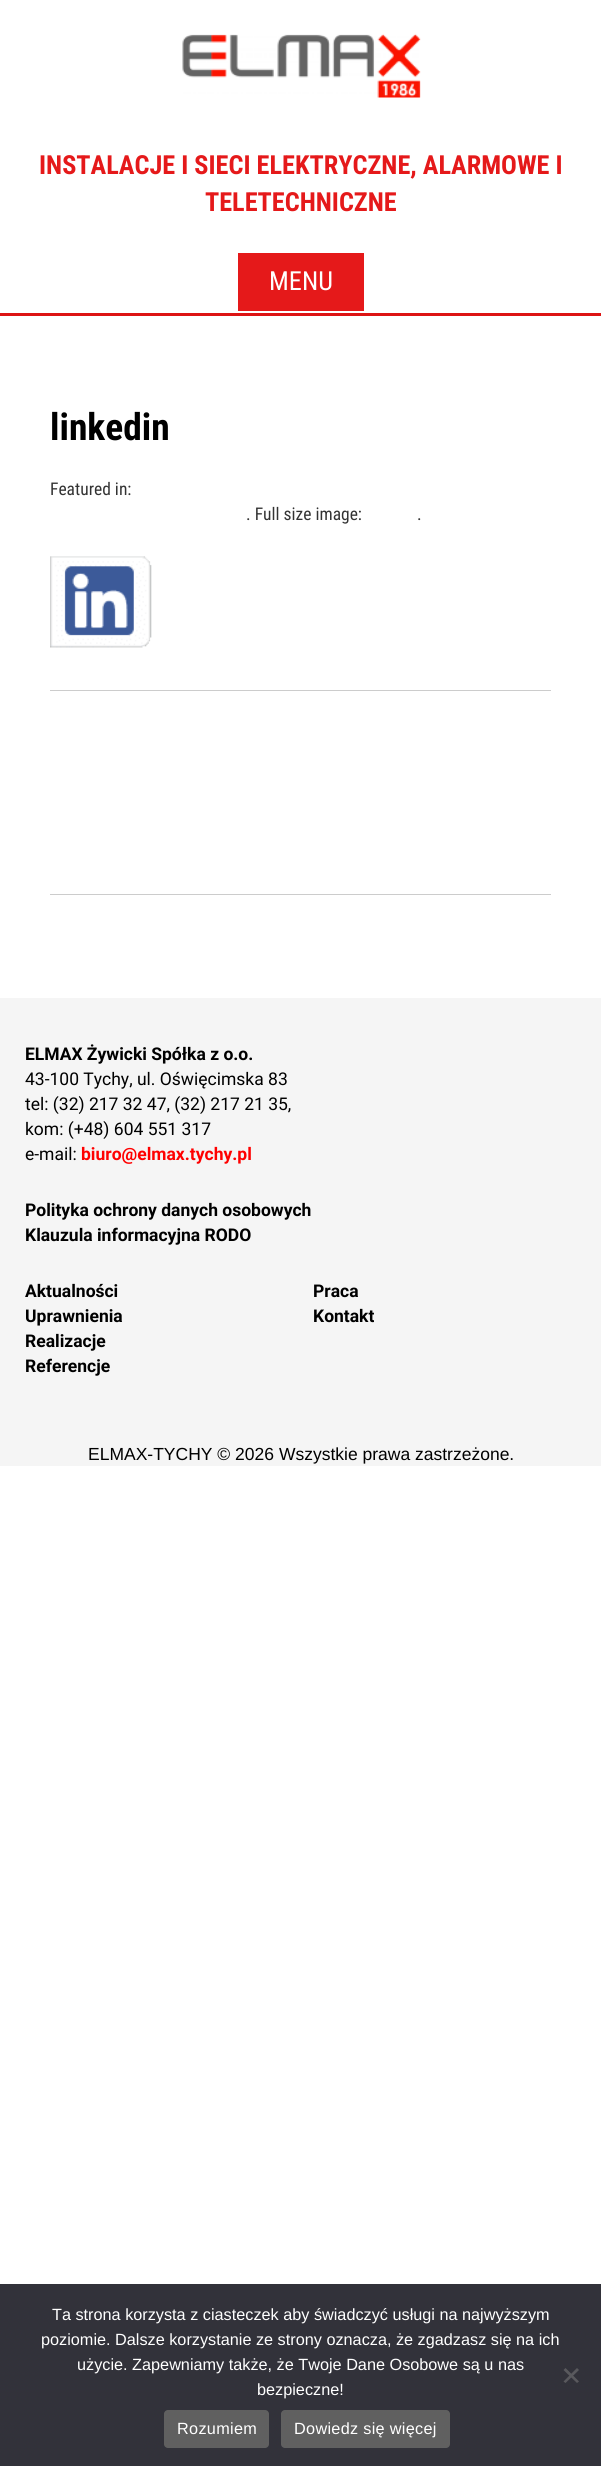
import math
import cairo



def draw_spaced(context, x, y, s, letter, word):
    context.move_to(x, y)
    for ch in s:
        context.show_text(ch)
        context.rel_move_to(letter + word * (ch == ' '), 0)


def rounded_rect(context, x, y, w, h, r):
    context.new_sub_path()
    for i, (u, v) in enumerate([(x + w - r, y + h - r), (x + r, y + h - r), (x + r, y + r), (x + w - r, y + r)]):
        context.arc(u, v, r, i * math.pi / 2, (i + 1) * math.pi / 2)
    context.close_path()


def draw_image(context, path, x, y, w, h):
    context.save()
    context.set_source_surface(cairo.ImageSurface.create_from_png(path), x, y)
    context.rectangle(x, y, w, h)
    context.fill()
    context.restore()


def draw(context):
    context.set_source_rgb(1, 1, 1)
    context.paint()
    context.set_source_rgb(221 / 255, 20 / 255, 20 / 255)
    context.rectangle(0, 313, 601, 3)
    context.fill()
    draw_image(context, "images/1.png", 182, 33, 239, 65)
    context.set_source_rgb(229 / 255, 25 / 255, 26 / 255)
    context.rectangle(238, 253, 126, 58)
    context.fill()
    draw_image(context, "images/2.png", 50, 556, 102, 92)
    context.set_source_rgb(204 / 255, 204 / 255, 204 / 255)
    context.rectangle(50, 690, 501, 1)
    context.fill()
    context.rectangle(50, 894, 501, 1)
    context.fill()
    context.set_source_rgb(245 / 255, 245 / 255, 245 / 255)
    context.rectangle(0, 998, 601, 468)
    context.fill()
    context.set_source_rgb(50 / 255, 50 / 255, 58 / 255)
    context.rectangle(0, 2284, 601, 182)
    context.fill()
    context.set_source_rgb(89 / 255, 89 / 255, 93 / 255)
    context.new_path()
    context.move_to(577, 2368)
    context.line_to(579, 2370)
    context.line_to(565.5, 2383)
    context.line_to(563.5, 2381.5)
    context.close_path()
    context.fill()
    context.new_path()
    context.move_to(563.5, 2370)
    context.line_to(565.5, 2368)
    context.line_to(579, 2381.5)
    context.line_to(577, 2383)
    context.close_path()
    context.fill()
    context.set_source_rgb(96 / 255, 96 / 255, 96 / 255)
    rounded_rect(context, 164, 2410, 105, 38, 4)
    context.fill()
    rounded_rect(context, 281, 2410, 169, 38, 4)
    context.fill()
    context.select_font_face("Roboto Condensed", cairo.FontSlant.NORMAL, cairo.FontWeight.BOLD)
    context.set_font_size(26.25)
    context.set_source_rgb(229 / 255, 25 / 255, 26 / 255)
    context.move_to(39, 174)
    context.show_text("INSTALACJE I SIECI ELEKTRYCZNE, ALARMOWE I")
    context.move_to(205, 211)
    context.show_text("TELETECHNICZNE")
    context.select_font_face("Roboto Condensed")
    context.set_source_rgb(1, 1, 1)
    context.move_to(269, 290)
    context.show_text("MENU")
    context.select_font_face("Roboto Condensed", cairo.FontSlant.NORMAL, cairo.FontWeight.BOLD)
    context.set_font_size(37.5)
    context.set_source_rgb(0, 0, 0)
    context.move_to(50, 440)
    context.show_text("linkedin")
    context.select_font_face("Roboto Condensed")
    context.set_font_size(17.5)
    context.set_source_rgb(51 / 255, 51 / 255, 51 / 255)
    context.move_to(50, 495)
    context.show_text("Featured in:")
    context.move_to(246, 520)
    context.show_text(". Full size image:")
    context.move_to(417, 520)
    context.show_text(".")
    context.select_font_face("Roboto", cairo.FontSlant.NORMAL, cairo.FontWeight.BOLD)
    context.set_source_rgb(0, 0, 0)
    context.move_to(25, 1060)
    context.show_text("ELMAX Żywicki Spółka z o.o.")
    context.select_font_face("Roboto")
    context.move_to(25, 1085)
    context.show_text("43-100 Tychy, ul. Oświęcimska 83")
    context.move_to(25, 1110)
    context.show_text("tel: (32) 217 32 47, (32) 217 21 35,")
    context.move_to(25, 1135)
    context.show_text("kom: (+48) 604 551 317")
    context.move_to(25, 1160)
    context.show_text("e-mail:")
    context.select_font_face("Roboto", cairo.FontSlant.NORMAL, cairo.FontWeight.BOLD)
    context.set_source_rgb(1, 0, 0)
    context.move_to(81, 1160)
    context.show_text("biuro@elmax.tychy.pl")
    context.set_source_rgb(0, 0, 0)
    context.move_to(25, 1216)
    context.show_text("Polityka ochrony danych osobowych")
    context.move_to(25, 1241)
    context.show_text("Klauzula informacyjna RODO")
    context.move_to(25, 1297)
    context.show_text("Aktualności")
    context.move_to(25, 1322)
    context.show_text("Uprawnienia")
    context.move_to(25, 1347)
    context.show_text("Realizacje")
    context.move_to(25, 1372)
    context.show_text("Referencje")
    context.move_to(313, 1297)
    context.show_text("Praca")
    context.move_to(313, 1322)
    context.show_text("Kontakt")
    context.select_font_face("Liberation Sans")
    context.move_to(88, 1460)
    context.show_text("ELMAX-TYCHY © 2026 Wszystkie prawa zastrzeżone.")
    context.set_font_size(16.25)
    context.set_source_rgb(1, 1, 1)
    context.move_to(52, 2320)
    context.show_text("Ta strona korzysta z ciasteczek aby świadczyć usługi na najwyższym")
    context.move_to(41, 2345)
    context.show_text("poziomie. Dalsze korzystanie ze strony oznacza, że zgadzasz się na ich")
    context.move_to(77, 2370)
    context.show_text("użycie. Zapewniamy także, że Twoje Dane Osobowe są u nas")
    context.move_to(257, 2395)
    context.show_text("bezpieczne!")
    draw_spaced(context, 177, 2434, "Rozumiem", 0.3, 0)
    draw_spaced(context, 294, 2434, "Dowiedz się więcej", 0.3, 0)


surface = cairo.ImageSurface(cairo.Format.RGB24, 601, 2466)
context = cairo.Context(surface)
options = cairo.FontOptions()
options.set_hint_metrics(cairo.HintMetrics.OFF)
options.set_hint_style(cairo.HintStyle.NONE)
context.set_font_options(options)
context.set_miter_limit(4)
draw(context)
surface.write_to_png("out.png")
